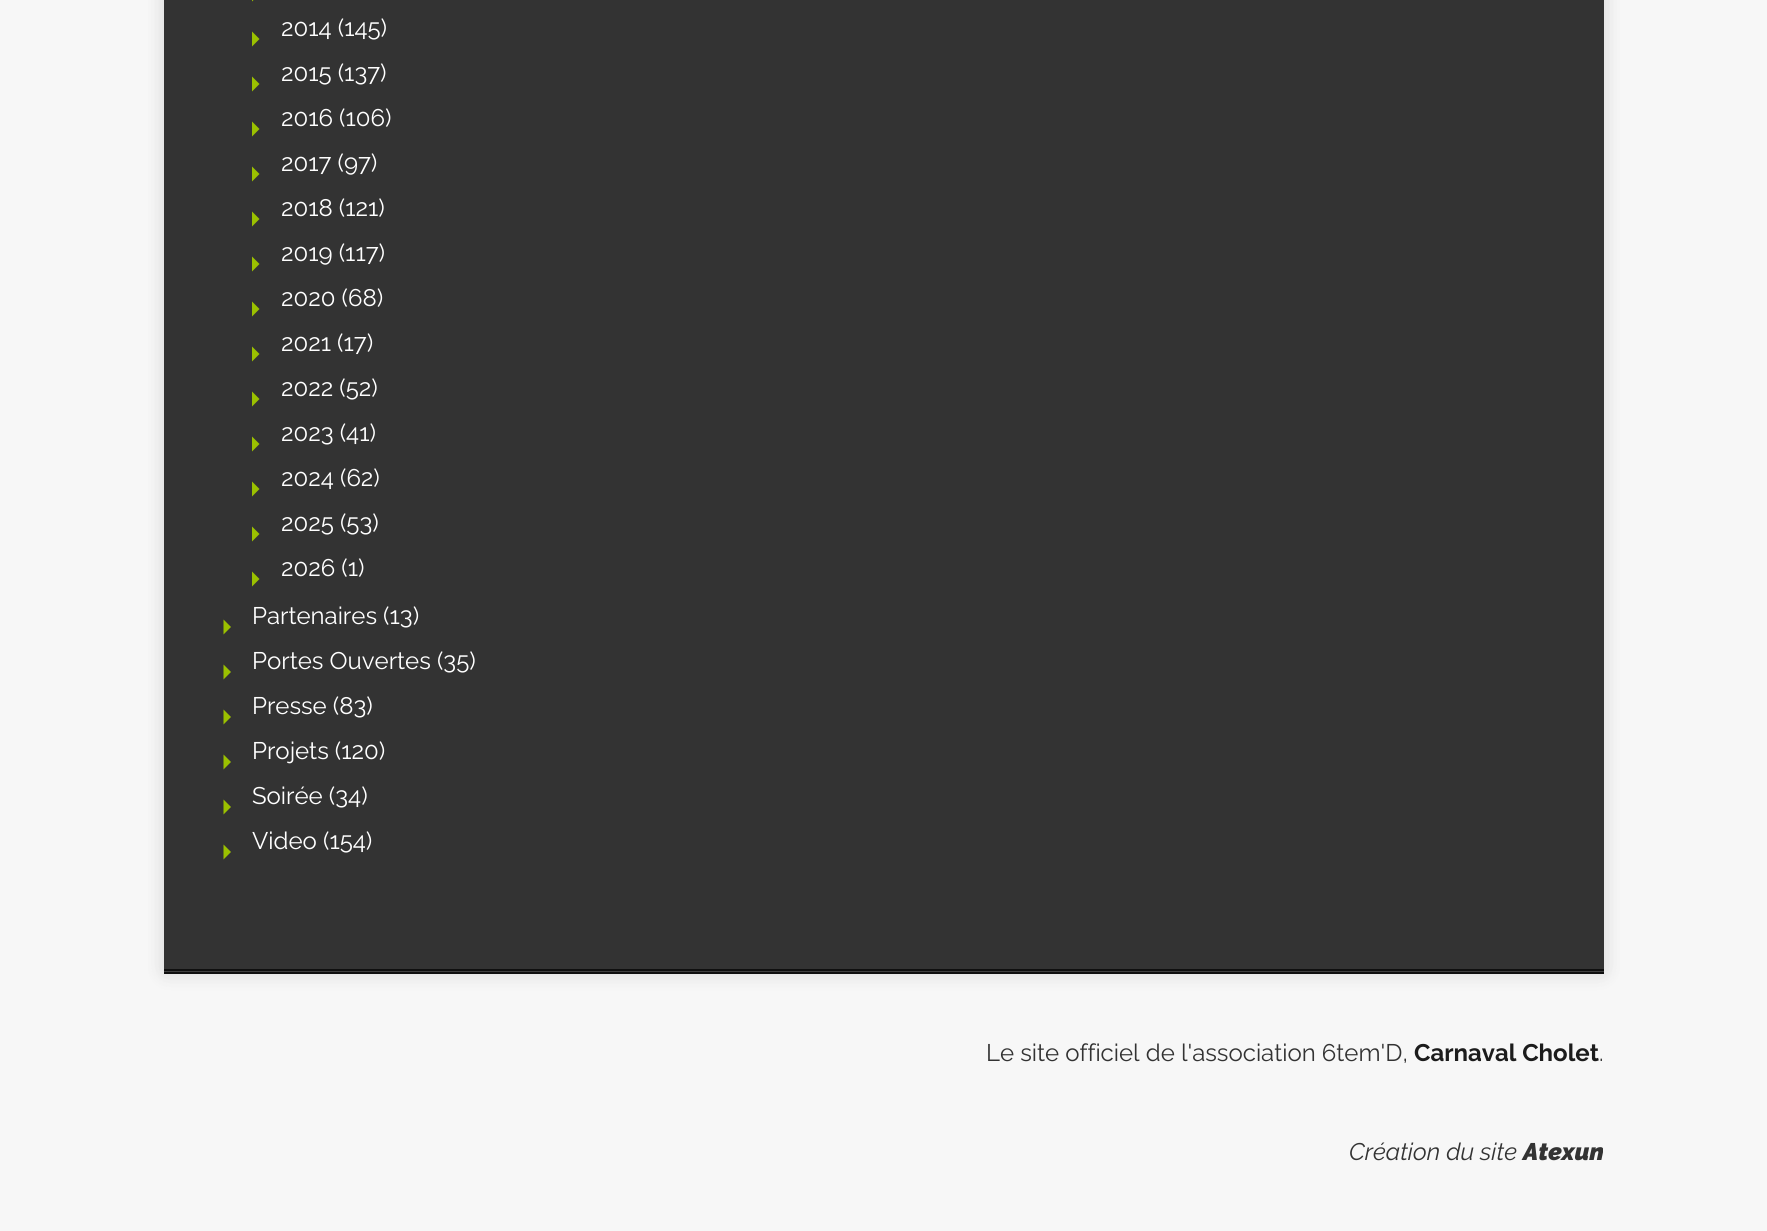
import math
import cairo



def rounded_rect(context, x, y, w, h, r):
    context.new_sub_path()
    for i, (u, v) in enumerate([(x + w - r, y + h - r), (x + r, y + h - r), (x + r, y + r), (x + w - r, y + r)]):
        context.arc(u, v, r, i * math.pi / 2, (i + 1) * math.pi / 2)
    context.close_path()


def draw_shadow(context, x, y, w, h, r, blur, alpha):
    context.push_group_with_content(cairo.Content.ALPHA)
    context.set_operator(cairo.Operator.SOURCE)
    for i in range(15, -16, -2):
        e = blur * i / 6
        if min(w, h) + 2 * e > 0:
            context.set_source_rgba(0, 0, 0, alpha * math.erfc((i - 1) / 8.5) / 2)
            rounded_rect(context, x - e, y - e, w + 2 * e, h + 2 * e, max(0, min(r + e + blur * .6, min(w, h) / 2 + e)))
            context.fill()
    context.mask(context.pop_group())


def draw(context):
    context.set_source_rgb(247 / 255, 247 / 255, 247 / 255)
    context.paint()
    context.set_source_rgb(0, 0, 0)
    draw_shadow(context, 164, -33, 1440, 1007, 0, 11, 0.07)
    draw_shadow(context, 164, -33, 1440, 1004, 0, 11, 0.07)
    context.set_source_rgb(51 / 255, 51 / 255, 51 / 255)
    context.rectangle(164, 0, 1440, 969)
    context.fill()
    context.set_source_rgb(15 / 255, 15 / 255, 15 / 255)
    context.rectangle(164, 969, 1440, 2)
    context.fill()
    context.set_source_rgb(155 / 255, 193 / 255, 0)
    context.new_path()
    context.move_to(252, 1.5)
    context.line_to(252, -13.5)
    context.line_to(259.5, -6)
    context.close_path()
    context.fill()
    context.new_path()
    context.move_to(252, 46.5)
    context.line_to(252, 31.5)
    context.line_to(259.5, 39)
    context.close_path()
    context.fill()
    context.new_path()
    context.move_to(252, 91.5)
    context.line_to(252, 76.5)
    context.line_to(259.5, 84)
    context.close_path()
    context.fill()
    context.new_path()
    context.move_to(252, 136.5)
    context.line_to(252, 121.5)
    context.line_to(259.5, 129)
    context.close_path()
    context.fill()
    context.new_path()
    context.move_to(252, 181.5)
    context.line_to(252, 166.5)
    context.line_to(259.5, 174)
    context.close_path()
    context.fill()
    context.new_path()
    context.move_to(252, 226.5)
    context.line_to(252, 211.5)
    context.line_to(259.5, 219)
    context.close_path()
    context.fill()
    context.new_path()
    context.move_to(252, 271.5)
    context.line_to(252, 256.5)
    context.line_to(259.5, 264)
    context.close_path()
    context.fill()
    context.new_path()
    context.move_to(252, 316.5)
    context.line_to(252, 301.5)
    context.line_to(259.5, 309)
    context.close_path()
    context.fill()
    context.new_path()
    context.move_to(252, 361.5)
    context.line_to(252, 346.5)
    context.line_to(259.5, 354)
    context.close_path()
    context.fill()
    context.new_path()
    context.move_to(252, 406.5)
    context.line_to(252, 391.5)
    context.line_to(259.5, 399)
    context.close_path()
    context.fill()
    context.new_path()
    context.move_to(252, 451.5)
    context.line_to(252, 436.5)
    context.line_to(259.5, 444)
    context.close_path()
    context.fill()
    context.new_path()
    context.move_to(252, 496.5)
    context.line_to(252, 481.5)
    context.line_to(259.5, 489)
    context.close_path()
    context.fill()
    context.new_path()
    context.move_to(252, 541.5)
    context.line_to(252, 526.5)
    context.line_to(259.5, 534)
    context.close_path()
    context.fill()
    context.new_path()
    context.move_to(252, 586.5)
    context.line_to(252, 571.5)
    context.line_to(259.5, 579)
    context.close_path()
    context.fill()
    context.new_path()
    context.move_to(223.5, 634.5)
    context.line_to(223.5, 619.5)
    context.line_to(231, 627)
    context.close_path()
    context.fill()
    context.new_path()
    context.move_to(223.5, 679.5)
    context.line_to(223.5, 664.5)
    context.line_to(231, 672)
    context.close_path()
    context.fill()
    context.new_path()
    context.move_to(223.5, 724.5)
    context.line_to(223.5, 709.5)
    context.line_to(231, 717)
    context.close_path()
    context.fill()
    context.new_path()
    context.move_to(223.5, 769.5)
    context.line_to(223.5, 754.5)
    context.line_to(231, 762)
    context.close_path()
    context.fill()
    context.new_path()
    context.move_to(223.5, 814.5)
    context.line_to(223.5, 799.5)
    context.line_to(231, 807)
    context.close_path()
    context.fill()
    context.new_path()
    context.move_to(223.5, 859.5)
    context.line_to(223.5, 844.5)
    context.line_to(231, 852)
    context.close_path()
    context.fill()
    context.set_source_rgb(64 / 255, 64 / 255, 64 / 255)
    context.rectangle(164, 971, 1440, 1)
    context.fill()
    context.set_source_rgb(15 / 255, 15 / 255, 15 / 255)
    context.rectangle(164, 972, 1440, 2)
    context.fill()
    context.select_font_face("Raleway")
    context.set_font_size(24)
    context.set_source_rgb(1, 1, 1)
    context.move_to(281, 36)
    context.show_text("2014 (145)")
    context.move_to(281, 81)
    context.show_text("2015 (137)")
    context.move_to(281, 126)
    context.show_text("2016 (106)")
    context.move_to(281, 171)
    context.show_text("2017 (97)")
    context.move_to(281, 216)
    context.show_text("2018 (121)")
    context.move_to(281, 261)
    context.show_text("2019 (117)")
    context.move_to(281, 306)
    context.show_text("2020 (68)")
    context.move_to(281, 351)
    context.show_text("2021 (17)")
    context.move_to(281, 396)
    context.show_text("2022 (52)")
    context.move_to(281, 441)
    context.show_text("2023 (41)")
    context.move_to(281, 486)
    context.show_text("2024 (62)")
    context.move_to(281, 531)
    context.show_text("2025 (53)")
    context.move_to(281, 576)
    context.show_text("2026 (1)")
    context.move_to(252, 624)
    context.show_text("Partenaires (13)")
    context.move_to(252, 669)
    context.show_text("Portes Ouvertes (35)")
    context.move_to(252, 714)
    context.show_text("Presse (83)")
    context.move_to(252, 759)
    context.show_text("Projets (120)")
    context.move_to(252, 804)
    context.show_text("Soirée (34)")
    context.move_to(252, 849)
    context.show_text("Video (154)")
    context.set_source_rgb(51 / 255, 51 / 255, 51 / 255)
    context.move_to(986, 1061)
    context.show_text("Le site officiel de l'association 6tem'D,")
    context.select_font_face("Raleway", cairo.FontSlant.NORMAL, cairo.FontWeight.BOLD)
    context.set_source_rgb(28 / 255, 28 / 255, 28 / 255)
    context.move_to(1414, 1061)
    context.show_text("Carnaval Cholet")
    context.select_font_face("Raleway")
    context.set_source_rgb(51 / 255, 51 / 255, 51 / 255)
    context.move_to(1599, 1061)
    context.show_text(".")
    context.select_font_face("Raleway", cairo.FontSlant.ITALIC)
    context.move_to(1349, 1160)
    context.show_text("Création du site")
    context.select_font_face("Raleway Black", cairo.FontSlant.ITALIC)
    context.move_to(1523, 1160)
    context.show_text("Atexun")


surface = cairo.ImageSurface(cairo.Format.RGB24, 1767, 1231)
context = cairo.Context(surface)
options = cairo.FontOptions()
options.set_hint_metrics(cairo.HintMetrics.OFF)
options.set_hint_style(cairo.HintStyle.NONE)
context.set_font_options(options)
context.set_miter_limit(4)
draw(context)
surface.write_to_png("out.png")
